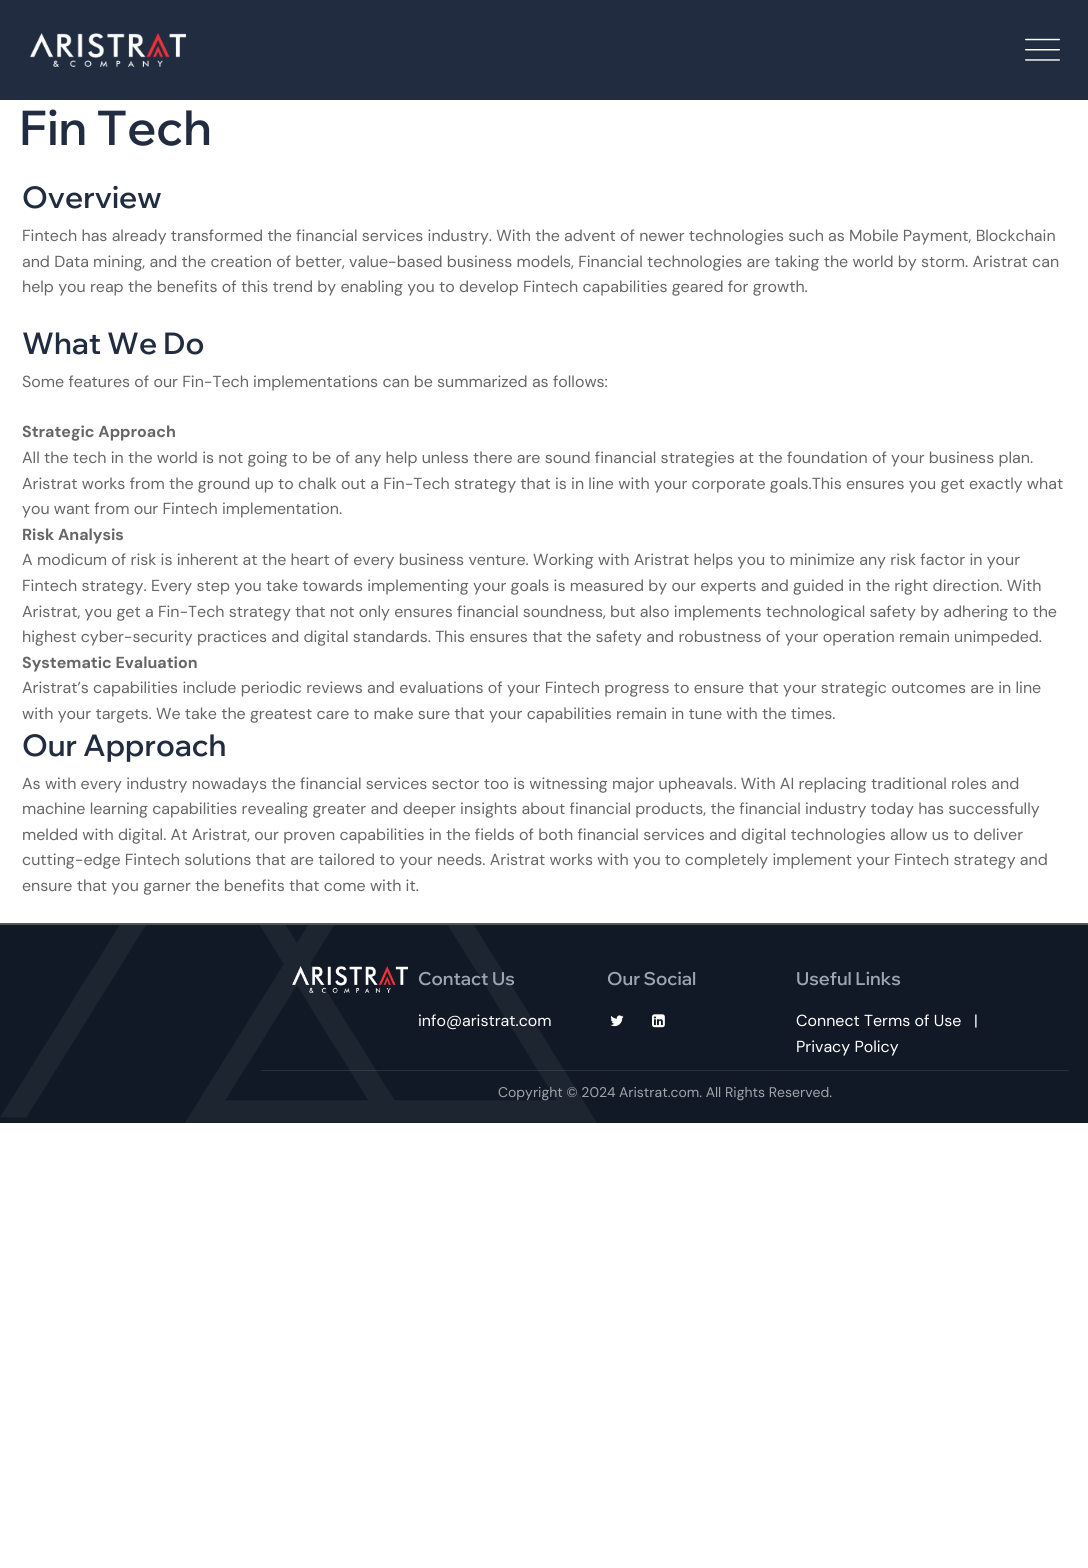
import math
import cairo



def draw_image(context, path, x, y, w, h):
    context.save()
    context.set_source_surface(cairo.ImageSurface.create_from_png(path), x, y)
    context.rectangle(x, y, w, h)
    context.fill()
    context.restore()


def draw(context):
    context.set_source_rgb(1, 1, 1)
    context.paint()
    context.set_source_rgb(33 / 255, 44 / 255, 64 / 255)
    context.rectangle(0, 0, 1088, 100)
    context.fill()
    draw_image(context, "images/1.png", 30, 33, 156, 34)
    draw_image(context, "images/2.png", 1025, 38, 35, 23)
    context.set_source_rgb(17 / 255, 25 / 255, 38 / 255)
    context.rectangle(0, 925, 1088, 198)
    context.fill()
    draw_image(context, "images/3.png", 0, 925, 597, 198)
    context.set_source_rgb(85 / 255, 85 / 255, 85 / 255)
    context.rectangle(0, 923, 1088, 2)
    context.fill()
    draw_image(context, "images/4.png", 292, 966, 116, 27)
    draw_image(context, "images/5.png", 610, 1015, 14, 12)
    draw_image(context, "images/6.png", 652, 1014, 13, 14)
    context.set_source_rgba(1, 1, 1, 0.1)
    context.rectangle(261, 1070, 808, 1)
    context.fill()
    context.select_font_face("Wix Madefor Display SemiBold")
    context.set_font_size(48)
    context.set_source_rgb(33 / 255, 44 / 255, 64 / 255)
    context.move_to(19, 145)
    context.show_text("Fin Tech")
    context.set_font_size(30)
    context.move_to(22, 208)
    context.show_text("Overview")
    context.select_font_face("DM Sans")
    context.set_font_size(16)
    context.set_source_rgb(102 / 255, 102 / 255, 102 / 255)
    context.move_to(22, 241)
    context.show_text("Fintech has already transformed the financial services industry. With the advent of newer technologies such as Mobile Payment, Blockchain")
    context.move_to(22, 267)
    context.show_text("and Data mining, and the creation of better, value-based business models, Financial technologies are taking the world by storm. Aristrat can")
    context.move_to(22, 292)
    context.show_text("help you reap the benefits of this trend by enabling you to develop Fintech capabilities geared for growth.")
    context.select_font_face("Wix Madefor Display SemiBold")
    context.set_font_size(30)
    context.set_source_rgb(33 / 255, 44 / 255, 64 / 255)
    context.move_to(22, 354)
    context.show_text("What We Do")
    context.select_font_face("DM Sans")
    context.set_font_size(16)
    context.set_source_rgb(102 / 255, 102 / 255, 102 / 255)
    context.move_to(22, 387)
    context.show_text("Some features of our Fin-Tech implementations can be summarized as follows:")
    context.select_font_face("DM Sans", cairo.FontSlant.NORMAL, cairo.FontWeight.BOLD)
    context.move_to(22, 437)
    context.show_text("Strategic Approach")
    context.select_font_face("DM Sans")
    context.move_to(22, 463)
    context.show_text("All the tech in the world is not going to be of any help unless there are sound financial strategies at the foundation of your business plan.")
    context.move_to(22, 489)
    context.show_text("Aristrat works from the ground up to chalk out a Fin-Tech strategy that is in line with your corporate goals.This ensures you get exactly what")
    context.move_to(22, 514)
    context.show_text("you want from our Fintech implementation.")
    context.select_font_face("DM Sans", cairo.FontSlant.NORMAL, cairo.FontWeight.BOLD)
    context.move_to(22, 540)
    context.show_text("Risk Analysis")
    context.select_font_face("DM Sans")
    context.move_to(22, 565)
    context.show_text("A modicum of risk is inherent at the heart of every business venture. Working with Aristrat helps you to minimize any risk factor in your")
    context.move_to(22, 591)
    context.show_text("Fintech strategy. Every step you take towards implementing your goals is measured by our experts and guided in the right direction. With")
    context.move_to(22, 617)
    context.show_text("Aristrat, you get a Fin-Tech strategy that not only ensures financial soundness, but also implements technological safety by adhering to the")
    context.move_to(22, 642)
    context.show_text("highest cyber-security practices and digital standards. This ensures that the safety and robustness of your operation remain unimpeded.")
    context.select_font_face("DM Sans", cairo.FontSlant.NORMAL, cairo.FontWeight.BOLD)
    context.move_to(22, 668)
    context.show_text("Systematic Evaluation")
    context.select_font_face("DM Sans")
    context.move_to(22, 693)
    context.show_text("Aristrat’s capabilities include periodic reviews and evaluations of your Fintech progress to ensure that your strategic outcomes are in line")
    context.move_to(22, 719)
    context.show_text("with your targets. We take the greatest care to make sure that your capabilities remain in tune with the times.")
    context.select_font_face("Wix Madefor Display SemiBold")
    context.set_font_size(30)
    context.set_source_rgb(33 / 255, 44 / 255, 64 / 255)
    context.move_to(22, 756)
    context.show_text("Our Approach")
    context.select_font_face("DM Sans")
    context.set_font_size(16)
    context.set_source_rgb(102 / 255, 102 / 255, 102 / 255)
    context.move_to(22, 789)
    context.show_text("As with every industry nowadays the financial services sector too is witnessing major upheavals. With AI replacing traditional roles and")
    context.move_to(22, 814)
    context.show_text("machine learning capabilities revealing greater and deeper insights about financial products, the financial industry today has successfully")
    context.move_to(22, 840)
    context.show_text("melded with digital. At Aristrat, our proven capabilities in the fields of both financial services and digital technologies allow us to deliver")
    context.move_to(22, 865)
    context.show_text("cutting-edge Fintech solutions that are tailored to your needs. Aristrat works with you to completely implement your Fintech strategy and")
    context.move_to(22, 891)
    context.show_text("ensure that you garner the benefits that come with it.")
    context.select_font_face("Wix Madefor Display SemiBold")
    context.set_font_size(18)
    context.set_source_rgb(157 / 255, 165 / 255, 181 / 255)
    context.move_to(418, 985)
    context.show_text("Contact Us")
    context.select_font_face("DM Sans")
    context.set_font_size(16)
    context.set_source_rgb(1, 1, 1)
    context.move_to(418, 1026)
    context.show_text("info@aristrat.com")
    context.select_font_face("Wix Madefor Display SemiBold")
    context.set_font_size(18)
    context.set_source_rgb(157 / 255, 165 / 255, 181 / 255)
    context.move_to(607, 985)
    context.show_text("Our Social")
    context.move_to(796, 985)
    context.show_text("Useful Links")
    context.select_font_face("DM Sans")
    context.set_font_size(16)
    context.set_source_rgb(1, 1, 1)
    context.move_to(796, 1026)
    context.show_text("Connect Terms of Use")
    context.move_to(974, 1026)
    context.show_text("|")
    context.move_to(796, 1052)
    context.show_text("Privacy Policy")
    context.select_font_face("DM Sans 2")
    context.set_font_size(14)
    context.set_source_rgb(161 / 255, 164 / 255, 169 / 255)
    context.move_to(498, 1097)
    context.show_text("Copyright © 2024")
    context.move_to(619, 1097)
    context.show_text("Aristrat.com. All Rights Reserved.")


surface = cairo.ImageSurface(cairo.Format.RGB24, 1088, 1568)
context = cairo.Context(surface)
options = cairo.FontOptions()
options.set_hint_metrics(cairo.HintMetrics.OFF)
options.set_hint_style(cairo.HintStyle.NONE)
context.set_font_options(options)
context.set_miter_limit(4)
draw(context)
surface.write_to_png("out.png")
